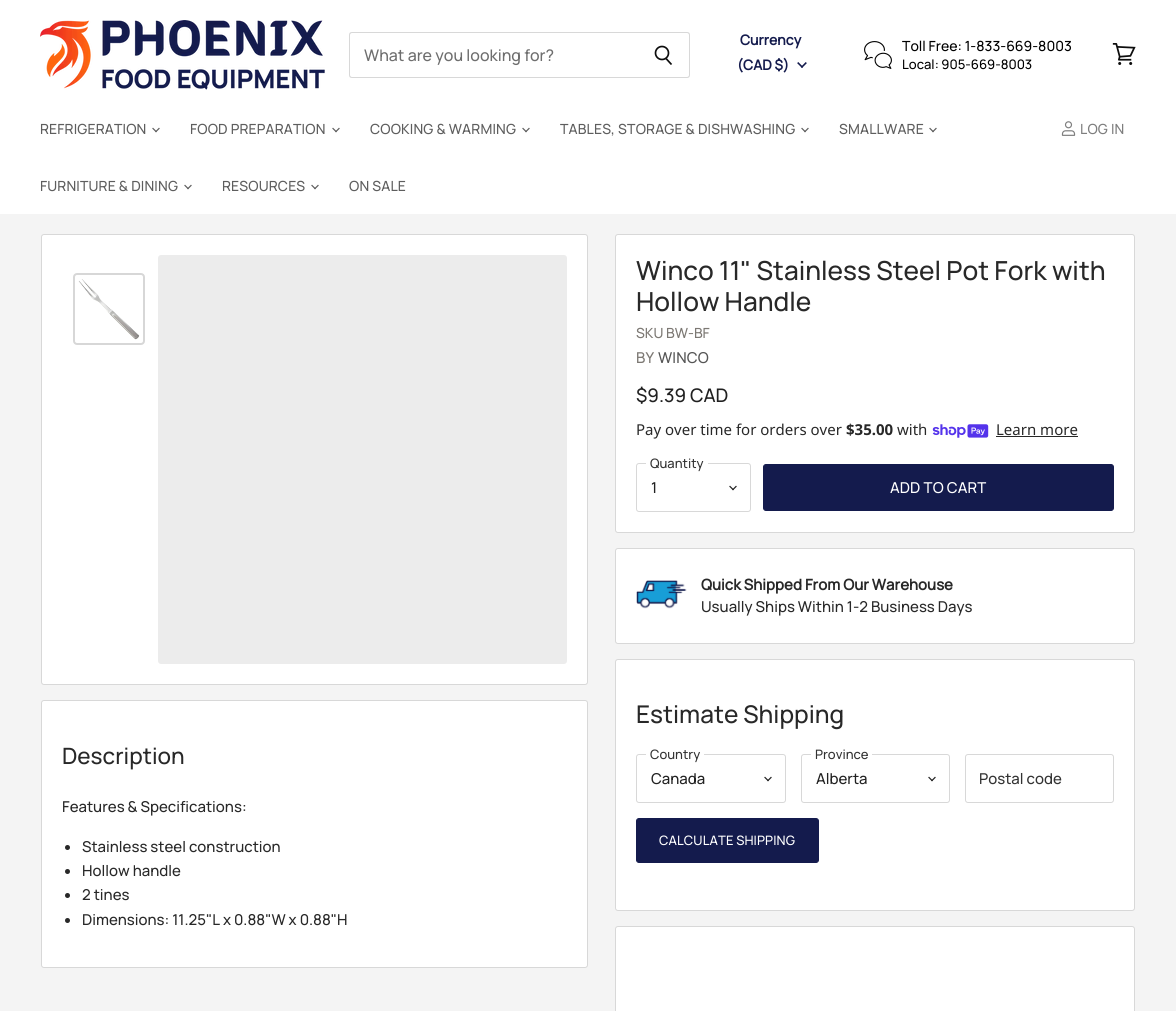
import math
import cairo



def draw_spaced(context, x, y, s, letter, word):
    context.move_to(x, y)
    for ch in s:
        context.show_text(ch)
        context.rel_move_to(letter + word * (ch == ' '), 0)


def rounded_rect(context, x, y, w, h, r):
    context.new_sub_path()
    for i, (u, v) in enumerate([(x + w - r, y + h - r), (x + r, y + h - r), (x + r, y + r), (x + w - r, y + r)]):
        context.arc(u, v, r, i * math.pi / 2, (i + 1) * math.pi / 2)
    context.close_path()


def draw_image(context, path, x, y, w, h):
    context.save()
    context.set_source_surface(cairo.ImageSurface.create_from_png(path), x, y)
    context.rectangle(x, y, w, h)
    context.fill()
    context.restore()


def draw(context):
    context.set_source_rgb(244 / 255, 244 / 255, 244 / 255)
    context.paint()
    context.set_source_rgb(1, 1, 1)
    context.rectangle(0, 0, 1176, 214)
    context.fill()
    draw_image(context, "images/1.png", 40, 20, 285, 70)
    context.set_source_rgb(216 / 255, 216 / 255, 216 / 255)
    context.set_fill_rule(cairo.FillRule.EVEN_ODD)
    context.new_path()
    context.move_to(352, 32)
    context.line_to(637, 32)
    context.line_to(637, 78)
    context.line_to(352, 78)
    context.curve_to(350, 78, 349, 77, 349, 75)
    context.line_to(349, 35)
    context.curve_to(349, 33, 350, 32, 352, 32)
    context.close_path()
    context.move_to(352, 33)
    context.line_to(637, 33)
    context.line_to(637, 77)
    context.line_to(352, 77)
    context.curve_to(351, 77, 350, 76, 350, 75)
    context.line_to(350, 35)
    context.curve_to(350, 34, 351, 33, 352, 33)
    context.close_path()
    context.fill()
    context.new_path()
    context.move_to(637, 32)
    context.line_to(687, 32)
    context.curve_to(689, 32, 690, 33, 690, 35)
    context.line_to(690, 75)
    context.curve_to(690, 77, 689, 78, 687, 78)
    context.line_to(637, 78)
    context.close_path()
    context.move_to(637, 33)
    context.line_to(687, 33)
    context.curve_to(688, 33, 689, 34, 689, 35)
    context.line_to(689, 75)
    context.curve_to(689, 76, 688, 77, 687, 77)
    context.line_to(637, 77)
    context.close_path()
    context.fill()
    context.new_path()
    context.move_to(671.5, 64.5)
    context.line_to(666, 58.5)
    context.set_source_rgb(13 / 255, 13 / 255, 13 / 255)
    context.set_line_width(1.7)
    context.stroke()
    context.arc(662, 53, 6.5, 0, 2 * math.pi)
    context.stroke()
    draw_image(context, "images/2.png", 797, 62, 10, 6)
    draw_image(context, "images/3.png", 864, 41, 28, 28)
    draw_image(context, "images/4.png", 1112, 43, 24, 22)
    draw_image(context, "images/5.png", 152, 127, 8, 6)
    draw_image(context, "images/5.png", 332, 127, 8, 6)
    draw_image(context, "images/5.png", 522, 127, 8, 6)
    draw_image(context, "images/5.png", 801, 127, 8, 6)
    draw_image(context, "images/5.png", 929, 127, 8, 6)
    draw_image(context, "images/5.png", 184, 184, 8, 6)
    draw_image(context, "images/5.png", 311, 184, 8, 6)
    draw_image(context, "images/6.png", 1061, 121, 15, 15)
    context.set_source_rgb(1, 1, 1)
    rounded_rect(context, 41.5, 234.5, 546, 450, 2.5)
    context.fill_preserve()
    context.set_source_rgb(216 / 255, 216 / 255, 216 / 255)
    context.set_line_width(1)
    context.stroke()
    rounded_rect(context, 74, 274, 70, 70, 3)
    context.set_source_rgb(215 / 255, 215 / 255, 215 / 255)
    context.set_line_width(2)
    context.stroke()
    draw_image(context, "images/7.png", 78, 279, 62, 61)
    context.set_source_rgb(236 / 255, 236 / 255, 236 / 255)
    rounded_rect(context, 158, 255, 409, 409, 3)
    context.fill()
    context.set_source_rgb(1, 1, 1)
    rounded_rect(context, 41.5, 700.5, 546, 267, 2.5)
    context.fill_preserve()
    context.set_source_rgb(216 / 255, 216 / 255, 216 / 255)
    context.set_line_width(1)
    context.stroke()
    context.set_source_rgb(40 / 255, 40 / 255, 40 / 255)
    context.arc(67.5, 847.5, 2.5, 0, 2 * math.pi)
    context.fill()
    context.arc(67.5, 871.5, 2.5, 0, 2 * math.pi)
    context.fill()
    context.arc(67.5, 895.5, 2.5, 0, 2 * math.pi)
    context.fill()
    context.arc(67.5, 920.5, 2.5, 0, 2 * math.pi)
    context.fill()
    context.set_source_rgb(1, 1, 1)
    rounded_rect(context, 615.5, 234.5, 519, 298, 2.5)
    context.fill_preserve()
    context.set_source_rgb(216 / 255, 216 / 255, 216 / 255)
    context.stroke()
    draw_image(context, "images/8.png", 932, 424, 57, 14)
    context.set_source_rgb(40 / 255, 40 / 255, 40 / 255)
    context.rectangle(996, 436, 82, 1)
    context.fill()
    rounded_rect(context, 636.5, 463.5, 114, 48, 2.5)
    context.set_source_rgb(216 / 255, 216 / 255, 216 / 255)
    context.stroke()
    context.set_source_rgb(1, 1, 1)
    context.rectangle(646, 463, 62, 1)
    context.fill()
    draw_image(context, "images/9.png", 729, 485, 8, 6)
    context.set_source_rgb(20 / 255, 27 / 255, 77 / 255)
    rounded_rect(context, 763.5, 464.5, 350, 46, 2.5)
    context.fill_preserve()
    context.stroke()
    context.set_source_rgb(1, 1, 1)
    rounded_rect(context, 615.5, 548.5, 519, 95, 2.5)
    context.fill_preserve()
    context.set_source_rgb(216 / 255, 216 / 255, 216 / 255)
    context.stroke()
    draw_image(context, "images/10.png", 636, 580, 51, 29)
    context.set_source_rgb(1, 1, 1)
    rounded_rect(context, 615.5, 659.5, 519, 251, 2.5)
    context.fill_preserve()
    context.set_source_rgb(216 / 255, 216 / 255, 216 / 255)
    context.stroke()
    rounded_rect(context, 636.5, 754.5, 149, 48, 2.5)
    context.stroke()
    context.set_source_rgb(1, 1, 1)
    context.rectangle(646, 754, 58, 1)
    context.fill()
    draw_image(context, "images/9.png", 764, 776, 8, 6)
    rounded_rect(context, 801.5, 754.5, 148, 48, 2.5)
    context.set_source_rgb(216 / 255, 216 / 255, 216 / 255)
    context.stroke()
    context.set_source_rgb(1, 1, 1)
    context.rectangle(811, 754, 61, 1)
    context.fill()
    draw_image(context, "images/9.png", 928, 776, 8, 6)
    rounded_rect(context, 965.5, 754.5, 148, 48, 2.5)
    context.set_source_rgb(216 / 255, 216 / 255, 216 / 255)
    context.stroke()
    context.set_source_rgb(20 / 255, 27 / 255, 77 / 255)
    rounded_rect(context, 636.5, 818.5, 182, 44, 2.5)
    context.fill_preserve()
    context.stroke()
    context.set_source_rgb(1, 1, 1)
    rounded_rect(context, 615.5, 926.5, 519, 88, 2.5)
    context.fill_preserve()
    context.set_source_rgb(216 / 255, 216 / 255, 216 / 255)
    context.stroke()
    context.select_font_face("Manrope Medium")
    context.set_font_size(16)
    context.set_source_rgb(110 / 255, 110 / 255, 110 / 255)
    context.move_to(364, 61)
    context.show_text("What are you looking for?")
    context.select_font_face("Manrope", cairo.FontSlant.NORMAL, cairo.FontWeight.BOLD)
    context.set_font_size(14)
    context.set_source_rgb(20 / 255, 27 / 255, 77 / 255)
    context.move_to(740, 45)
    context.show_text("Currency")
    context.move_to(737, 70)
    context.show_text("(CAD $)")
    context.select_font_face("Manrope Medium")
    context.set_source_rgb(0, 0, 0)
    context.move_to(902, 51)
    context.show_text("Toll Free: 1-833-669-8003")
    context.set_font_size(13.1)
    context.move_to(902, 69)
    context.show_text("Local: 905-669-8003")
    context.set_font_size(14)
    context.set_source_rgb(94 / 255, 94 / 255, 94 / 255)
    draw_spaced(context, 40, 134, "REFRIGERATION", 0.15, 0)
    draw_spaced(context, 190, 134, "FOOD PREPARATION", 0.15, 0)
    draw_spaced(context, 370, 134, "COOKING & WARMING", 0.15, 0)
    draw_spaced(context, 560, 134, "TABLES, STORAGE & DISHWASHING", 0.15, 0)
    draw_spaced(context, 839, 134, "SMALLWARE", 0.15, 0)
    draw_spaced(context, 40, 191, "FURNITURE & DINING", 0.15, 0)
    draw_spaced(context, 222, 191, "RESOURCES", 0.15, 0)
    draw_spaced(context, 349, 191, "ON SALE", 0.15, 0)
    context.set_source_rgb(126 / 255, 126 / 255, 126 / 255)
    draw_spaced(context, 1080, 134, "LOG IN", 0.15, 0)
    context.set_font_size(22.5)
    context.set_source_rgb(40 / 255, 40 / 255, 40 / 255)
    context.move_to(62, 764)
    context.show_text("Description")
    context.set_font_size(15)
    context.move_to(62, 812)
    context.show_text("Features & Specifications:")
    context.move_to(82, 852)
    context.show_text("Stainless steel construction")
    context.move_to(82, 876)
    context.show_text("Hollow handle")
    context.move_to(82, 900)
    context.show_text("2 tines")
    context.move_to(82, 925)
    context.show_text("Dimensions: 11.25\"L x 0.88\"W x 0.88\"H")
    context.set_font_size(26.25)
    context.move_to(636, 280)
    context.show_text("Winco 11\" Stainless Steel Pot Fork with")
    context.move_to(636, 311)
    context.show_text("Hollow Handle")
    context.set_font_size(14)
    context.set_source_rgb(124 / 255, 120 / 255, 115 / 255)
    context.move_to(636, 338)
    context.show_text("SKU BW-BF")
    context.set_font_size(15)
    draw_spaced(context, 636, 363, "BY", 0.1, 0)
    context.set_source_rgb(85 / 255, 85 / 255, 85 / 255)
    draw_spaced(context, 658, 363, "WINCO", 0.1, 0)
    context.set_font_size(18.75)
    context.set_source_rgb(33 / 255, 33 / 255, 33 / 255)
    context.move_to(636, 402)
    context.show_text("$9.39 CAD")
    context.select_font_face("Noto Sans")
    context.set_font_size(15)
    context.set_source_rgb(40 / 255, 40 / 255, 40 / 255)
    context.move_to(636, 435)
    context.show_text("Pay over time for orders over")
    context.select_font_face("Noto Sans", cairo.FontSlant.NORMAL, cairo.FontWeight.BOLD)
    context.move_to(846, 435)
    context.show_text("$35.00")
    context.select_font_face("Noto Sans")
    context.move_to(897, 435)
    context.show_text("with")
    context.move_to(996, 435)
    context.show_text("Learn more")
    context.select_font_face("Manrope Medium")
    context.set_font_size(13)
    context.set_source_rgb(51 / 255, 51 / 255, 51 / 255)
    context.move_to(650, 468)
    context.show_text("Quantity")
    context.set_font_size(15)
    context.set_source_rgb(33 / 255, 33 / 255, 33 / 255)
    context.move_to(651, 493)
    context.show_text("1")
    context.set_source_rgb(1, 1, 1)
    draw_spaced(context, 890, 493, "ADD TO CART", 0.1, 0)
    context.select_font_face("Manrope", cairo.FontSlant.NORMAL, cairo.FontWeight.BOLD)
    context.set_source_rgb(40 / 255, 40 / 255, 40 / 255)
    context.move_to(701, 590)
    context.show_text("Quick Shipped From Our Warehouse")
    context.select_font_face("Manrope Medium")
    context.move_to(701, 612)
    context.show_text("Usually Ships Within 1-2 Business Days")
    context.set_font_size(24.4)
    context.move_to(636, 723)
    context.show_text("Estimate Shipping")
    context.set_font_size(13)
    context.set_source_rgb(51 / 255, 51 / 255, 51 / 255)
    context.move_to(650, 759)
    context.show_text("Country")
    context.set_font_size(15)
    context.set_source_rgb(33 / 255, 33 / 255, 33 / 255)
    context.move_to(651, 784)
    context.show_text("Canada")
    context.set_font_size(13)
    context.set_source_rgb(51 / 255, 51 / 255, 51 / 255)
    context.move_to(815, 759)
    context.show_text("Province")
    context.set_font_size(15)
    context.set_source_rgb(33 / 255, 33 / 255, 33 / 255)
    context.move_to(816, 784)
    context.show_text("Alberta")
    context.set_source_rgb(51 / 255, 51 / 255, 51 / 255)
    context.move_to(979, 784)
    context.show_text("Postal code")
    context.set_font_size(13)
    context.set_source_rgb(1, 1, 1)
    draw_spaced(context, 659, 845, "CALCULATE SHIPPING", 0.1, 0)


surface = cairo.ImageSurface(cairo.Format.RGB24, 1176, 1011)
context = cairo.Context(surface)
options = cairo.FontOptions()
options.set_hint_metrics(cairo.HintMetrics.OFF)
options.set_hint_style(cairo.HintStyle.NONE)
context.set_font_options(options)
context.set_miter_limit(4)
draw(context)
surface.write_to_png("out.png")
